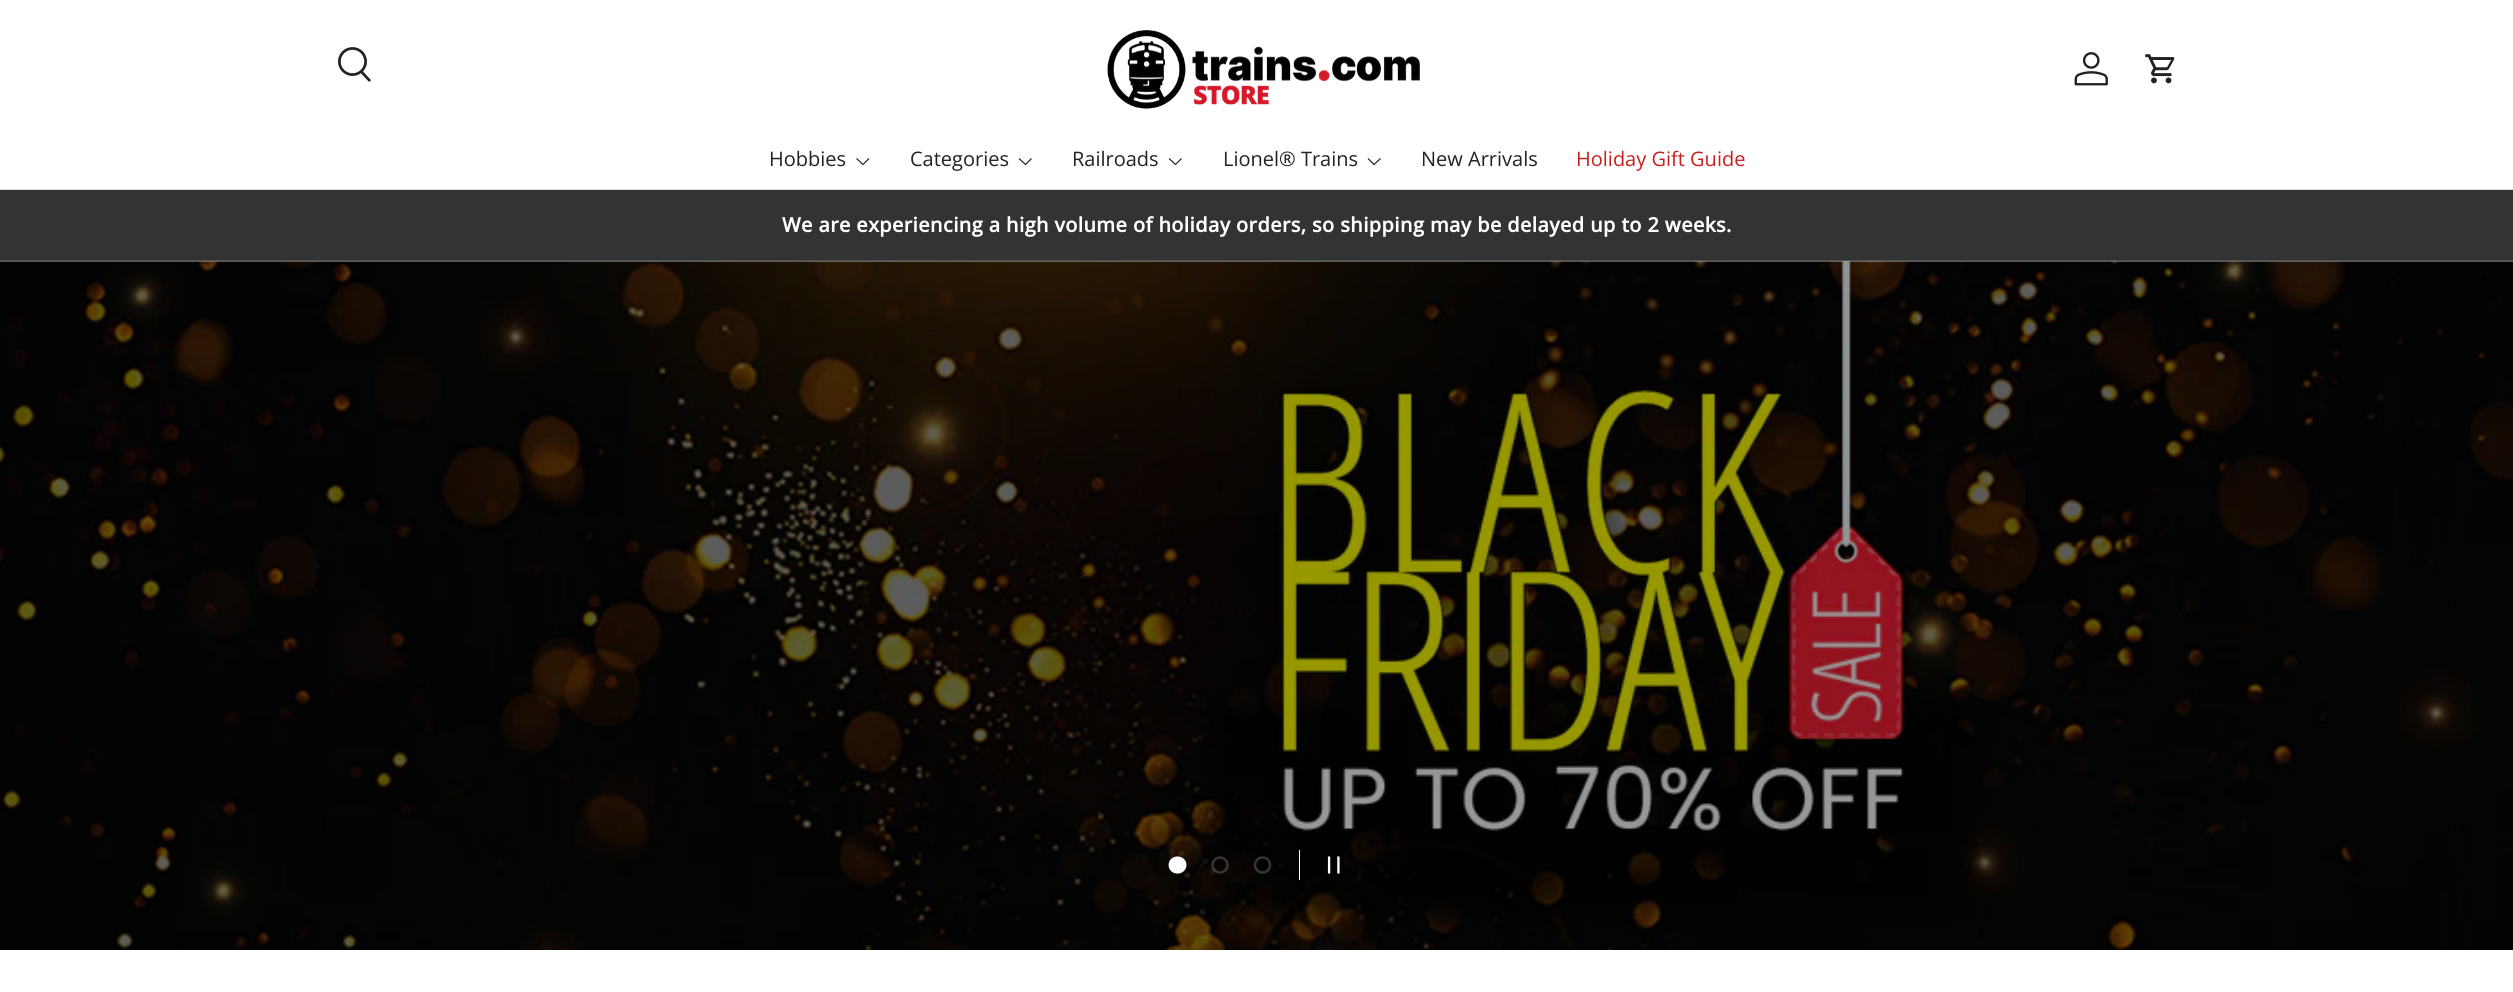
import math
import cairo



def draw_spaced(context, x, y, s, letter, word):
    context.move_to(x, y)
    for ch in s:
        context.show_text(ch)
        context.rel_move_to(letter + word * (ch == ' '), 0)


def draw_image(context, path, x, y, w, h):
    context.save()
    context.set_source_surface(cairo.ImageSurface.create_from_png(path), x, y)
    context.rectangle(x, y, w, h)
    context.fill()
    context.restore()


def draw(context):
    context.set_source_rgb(1, 1, 1)
    context.paint()
    context.set_source_rgb(153 / 255, 153 / 255, 153 / 255)
    context.rectangle(0, 261, 2513, 1)
    context.fill()
    draw_image(context, "images/1.png", 338, 47, 33, 35)
    draw_image(context, "images/2.png", 1107, 30, 313, 79)
    draw_image(context, "images/3.png", 2074, 52, 34, 34)
    draw_image(context, "images/4.png", 2145, 54, 30, 30)
    context.new_path()
    context.move_to(869, 158.5)
    context.line_to(863, 164.5)
    context.line_to(856.5, 158.5)
    context.set_source_rgb(34 / 255, 34 / 255, 34 / 255)
    context.set_line_width(1.2)
    context.stroke()
    context.new_path()
    context.move_to(1031.5, 158.5)
    context.line_to(1025.5, 164.5)
    context.line_to(1019, 158.5)
    context.stroke()
    context.new_path()
    context.move_to(1181.5, 158.5)
    context.line_to(1175.5, 164.5)
    context.line_to(1169, 158.5)
    context.stroke()
    context.new_path()
    context.move_to(1380.5, 158.5)
    context.line_to(1374, 164.5)
    context.line_to(1368, 158.5)
    context.stroke()
    context.set_source_rgb(222 / 255, 222 / 255, 222 / 255)
    context.rectangle(0, 189, 2513, 1)
    context.fill()
    context.set_source_rgb(51 / 255, 51 / 255, 51 / 255)
    context.rectangle(0, 190, 2513, 70)
    context.fill()
    context.set_source_rgb(82 / 255, 82 / 255, 82 / 255)
    context.rectangle(0, 260, 2513, 1)
    context.fill()
    draw_image(context, "images/5.png", 0, 261, 2513, 689)
    context.new_path()
    context.move_to(1173, 865)
    context.curve_to(1173, 859.5, 1182, 859.5, 1182, 865)
    context.curve_to(1182, 870.5, 1173, 870.5, 1173, 865)
    context.set_source_rgb(1, 1, 1)
    context.set_line_width(8.8)
    context.stroke()
    context.arc(1177.5, 865, 7.5, 0, 2 * math.pi)
    context.set_source_rgba(1, 1, 1, 0.2)
    context.set_line_width(2.5)
    context.stroke()
    context.arc(1220, 865, 7.5, 0, 2 * math.pi)
    context.stroke()
    context.arc(1262.5, 865, 7.5, 0, 2 * math.pi)
    context.stroke()
    context.set_source_rgb(1, 1, 1)
    context.rectangle(1299, 850, 1, 30)
    context.fill()
    draw_image(context, "images/6.png", 1327, 856, 13, 18)
    context.select_font_face("Open Sans")
    context.set_font_size(20)
    context.set_source_rgb(34 / 255, 34 / 255, 34 / 255)
    context.move_to(769, 166)
    context.show_text("Hobbies")
    context.move_to(910, 166)
    context.show_text("Categories")
    context.move_to(1072, 166)
    context.show_text("Railroads")
    context.move_to(1223, 166)
    context.show_text("Lionel® Trains")
    context.move_to(1421, 166)
    context.show_text("New Arrivals")
    context.set_source_rgb(198 / 255, 32 / 255, 32 / 255)
    context.move_to(1576, 166)
    context.show_text("Holiday Gift Guide")
    context.select_font_face("Open Sans", cairo.FontSlant.NORMAL, cairo.FontWeight.BOLD)
    context.set_source_rgb(1, 1, 1)
    draw_spaced(context, 782, 232, "We are experiencing a high volume of holiday orders, so shipping may be delayed up to 2 weeks.", 0.4, 0)


surface = cairo.ImageSurface(cairo.Format.RGB24, 2513, 992)
context = cairo.Context(surface)
options = cairo.FontOptions()
options.set_hint_metrics(cairo.HintMetrics.OFF)
options.set_hint_style(cairo.HintStyle.NONE)
context.set_font_options(options)
context.set_miter_limit(4)
draw(context)
surface.write_to_png("out.png")
